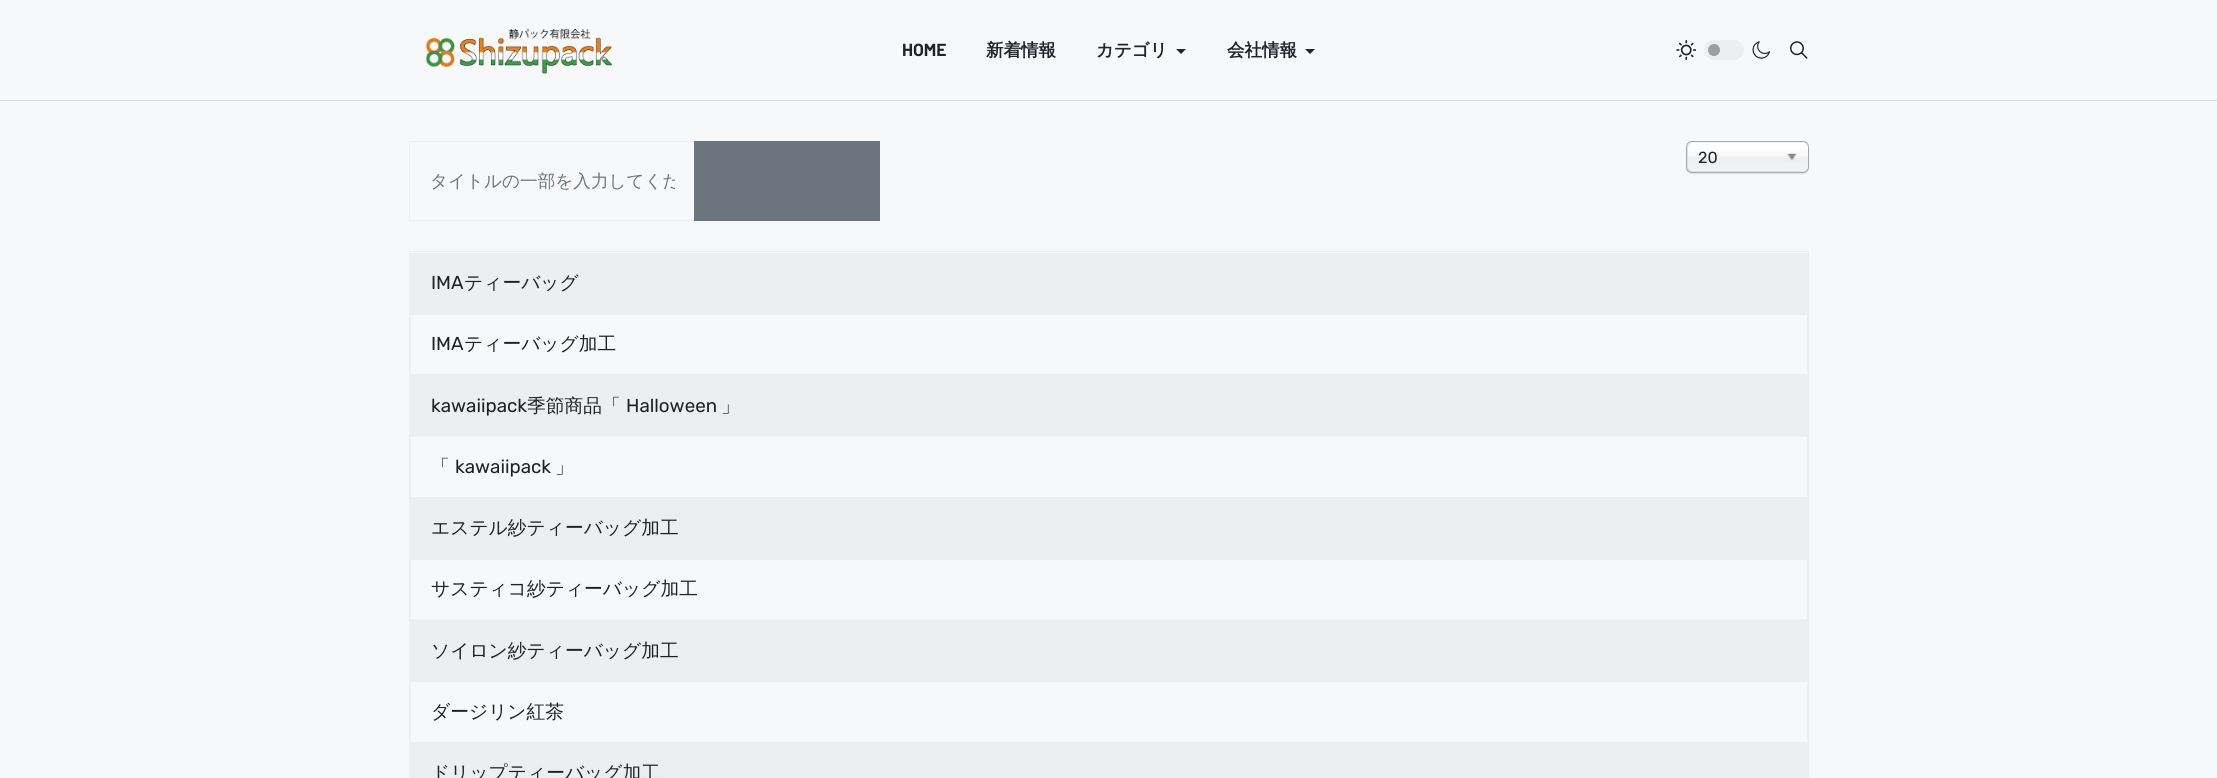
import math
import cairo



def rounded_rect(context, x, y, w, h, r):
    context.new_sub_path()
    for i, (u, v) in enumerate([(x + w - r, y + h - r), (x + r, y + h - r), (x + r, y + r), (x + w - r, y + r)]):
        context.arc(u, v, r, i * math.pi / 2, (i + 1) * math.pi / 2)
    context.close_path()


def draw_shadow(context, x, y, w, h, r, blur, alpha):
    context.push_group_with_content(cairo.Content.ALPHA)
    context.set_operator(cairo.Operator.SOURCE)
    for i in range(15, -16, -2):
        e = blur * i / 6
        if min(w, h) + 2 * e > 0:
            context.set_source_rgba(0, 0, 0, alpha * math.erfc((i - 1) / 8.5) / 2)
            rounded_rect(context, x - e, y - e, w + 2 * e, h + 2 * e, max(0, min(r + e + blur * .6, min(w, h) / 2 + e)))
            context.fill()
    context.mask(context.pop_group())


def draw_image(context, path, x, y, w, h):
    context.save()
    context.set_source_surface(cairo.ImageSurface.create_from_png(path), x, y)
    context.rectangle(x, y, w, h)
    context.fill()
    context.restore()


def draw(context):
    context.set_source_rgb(247 / 255, 248 / 255, 249 / 255)
    context.paint()
    context.set_source_rgb(238 / 255, 238 / 255, 238 / 255)
    context.rectangle(0, 100, 2217, 1)
    context.fill()
    context.save()
    context.rectangle(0, 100, 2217, 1)
    context.clip()
    context.set_source_rgb(0, 0, 0)
    draw_shadow(context, 0, 1, 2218, 100, 0, 0.5, 0.1)
    context.restore()
    draw_image(context, "images/1.png", 425, 28, 187, 46)
    context.set_source_rgb(33 / 255, 37 / 255, 41 / 255)
    context.new_path()
    context.move_to(1176, 49)
    context.line_to(1186, 49)
    context.line_to(1181, 54)
    context.close_path()
    context.fill()
    context.new_path()
    context.move_to(1305, 49)
    context.line_to(1315, 49)
    context.line_to(1310, 54)
    context.close_path()
    context.fill()
    draw_image(context, "images/2.png", 1676, 40, 20, 20)
    context.set_source_rgb(238 / 255, 238 / 255, 238 / 255)
    rounded_rect(context, 1704, 40, 40, 20, 10)
    context.fill()
    context.set_source_rgb(158 / 255, 158 / 255, 158 / 255)
    context.arc(1714, 50, 6, 0, 2 * math.pi)
    context.fill()
    draw_image(context, "images/3.png", 1752, 41, 18, 18)
    draw_image(context, "images/4.png", 1790, 41, 18, 18)
    context.set_source_rgb(0, 0, 0)
    draw_shadow(context, 1686, 143, 123, 31, 6, 0.5, 0.1)
    gradient = cairo.LinearGradient(1748, 143, 1748, 171)
    gradient.add_color_stop_rgba(0.2, 1, 1, 1, 1)
    gradient.add_color_stop_rgba(0.5, 246 / 255, 246 / 255, 246 / 255, 1)
    gradient.add_color_stop_rgba(0.52, 238 / 255, 238 / 255, 238 / 255, 1)
    gradient.add_color_stop_rgba(1, 244 / 255, 244 / 255, 244 / 255, 1)
    context.set_source(gradient)
    rounded_rect(context, 1688, 143, 120, 28, 5)
    context.fill()
    rounded_rect(context, 1686.5, 141.5, 122, 31, 5.5)
    context.set_source_rgb(170 / 255, 170 / 255, 170 / 255)
    context.set_line_width(1)
    context.stroke()
    draw_image(context, "images/5.png", 1787, 153, 10, 8)
    context.rectangle(409.5, 141.5, 286, 79)
    context.set_source_rgb(238 / 255, 238 / 255, 238 / 255)
    context.stroke()
    context.set_source_rgb(108 / 255, 117 / 255, 125 / 255)
    context.rectangle(694, 141, 186, 80)
    context.fill()
    context.rectangle(409.5, 251.5, 1399, 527)
    context.set_source_rgb(238 / 255, 238 / 255, 238 / 255)
    context.stroke()
    context.set_source_rgb(237 / 255, 238 / 255, 239 / 255)
    context.rectangle(410, 253, 1398, 61)
    context.fill()
    context.rectangle(410.5, 314.5, 1397, 60)
    context.set_source_rgb(238 / 255, 238 / 255, 238 / 255)
    context.stroke()
    context.set_source_rgb(237 / 255, 238 / 255, 239 / 255)
    context.rectangle(410, 375, 1398, 61)
    context.fill()
    context.rectangle(410.5, 436.5, 1397, 61)
    context.set_source_rgb(238 / 255, 238 / 255, 238 / 255)
    context.stroke()
    context.set_source_rgb(237 / 255, 238 / 255, 239 / 255)
    context.rectangle(410, 498, 1398, 61)
    context.fill()
    context.rectangle(410.5, 559.5, 1397, 60)
    context.set_source_rgb(238 / 255, 238 / 255, 238 / 255)
    context.stroke()
    context.set_source_rgb(237 / 255, 238 / 255, 239 / 255)
    context.rectangle(410, 620, 1398, 61)
    context.fill()
    context.rectangle(410.5, 681.5, 1397, 61)
    context.set_source_rgb(238 / 255, 238 / 255, 238 / 255)
    context.stroke()
    context.set_source_rgb(237 / 255, 238 / 255, 239 / 255)
    context.rectangle(410, 743, 1398, 35)
    context.fill()
    context.select_font_face("Barlow", cairo.FontSlant.NORMAL, cairo.FontWeight.BOLD)
    context.set_font_size(17.5)
    context.set_source_rgb(33 / 255, 37 / 255, 41 / 255)
    context.move_to(902, 56)
    context.show_text("HOME")
    context.select_font_face("WenQuanYi Zen Hei", cairo.FontSlant.NORMAL, cairo.FontWeight.BOLD)
    context.move_to(986, 56)
    context.show_text("新着情報")
    context.move_to(1096, 56)
    context.show_text("カテゴリ")
    context.move_to(1227, 56)
    context.show_text("会社情報")
    context.select_font_face("Rubik")
    context.set_font_size(16)
    context.move_to(1698, 163)
    context.show_text("20")
    context.save()
    context.rectangle(430, 170, 245, 24)
    context.clip()
    context.select_font_face("WenQuanYi Zen Hei Medium")
    context.set_font_size(17.6)
    context.set_source_rgb(108 / 255, 117 / 255, 125 / 255)
    context.move_to(430, 187)
    context.show_text("タイトルの一部を入力してくだ")
    context.restore()
    context.set_font_size(18.75)
    context.set_source_rgb(33 / 255, 33 / 255, 33 / 255)
    context.move_to(431, 289)
    context.show_text("IMA")
    context.select_font_face("WenQuanYi Zen Hei Medium")
    context.move_to(464, 289)
    context.show_text("ティーバッグ")
    context.select_font_face("Rubik")
    context.move_to(431, 350)
    context.show_text("IMA")
    context.select_font_face("WenQuanYi Zen Hei Medium")
    context.move_to(464, 350)
    context.show_text("ティーバッグ加工")
    context.select_font_face("Rubik")
    context.move_to(431, 412)
    context.show_text("kawaiipack")
    context.select_font_face("WenQuanYi Zen Hei Medium")
    context.move_to(527, 412)
    context.show_text("季節商品「")
    context.select_font_face("Rubik")
    context.move_to(626, 412)
    context.show_text("Halloween")
    context.select_font_face("WenQuanYi Zen Hei Medium")
    context.move_to(721, 412)
    context.show_text("」")
    context.move_to(431, 473)
    context.show_text("「")
    context.select_font_face("Rubik")
    context.move_to(455, 473)
    context.show_text("kawaiipack")
    context.select_font_face("WenQuanYi Zen Hei Medium")
    context.move_to(555, 473)
    context.show_text("」")
    context.move_to(431, 534)
    context.show_text("エステル紗ティーバッグ加工")
    context.move_to(431, 595)
    context.show_text("サスティコ紗ティーバッグ加工")
    context.move_to(431, 657)
    context.show_text("ソイロン紗ティーバッグ加工")
    context.move_to(431, 718)
    context.show_text("ダージリン紅茶")
    context.move_to(431, 779)
    context.show_text("ドリップティーバッグ加工")


surface = cairo.ImageSurface(cairo.Format.RGB24, 2217, 778)
context = cairo.Context(surface)
options = cairo.FontOptions()
options.set_hint_metrics(cairo.HintMetrics.OFF)
options.set_hint_style(cairo.HintStyle.NONE)
context.set_font_options(options)
context.set_miter_limit(4)
draw(context)
surface.write_to_png("out.png")
